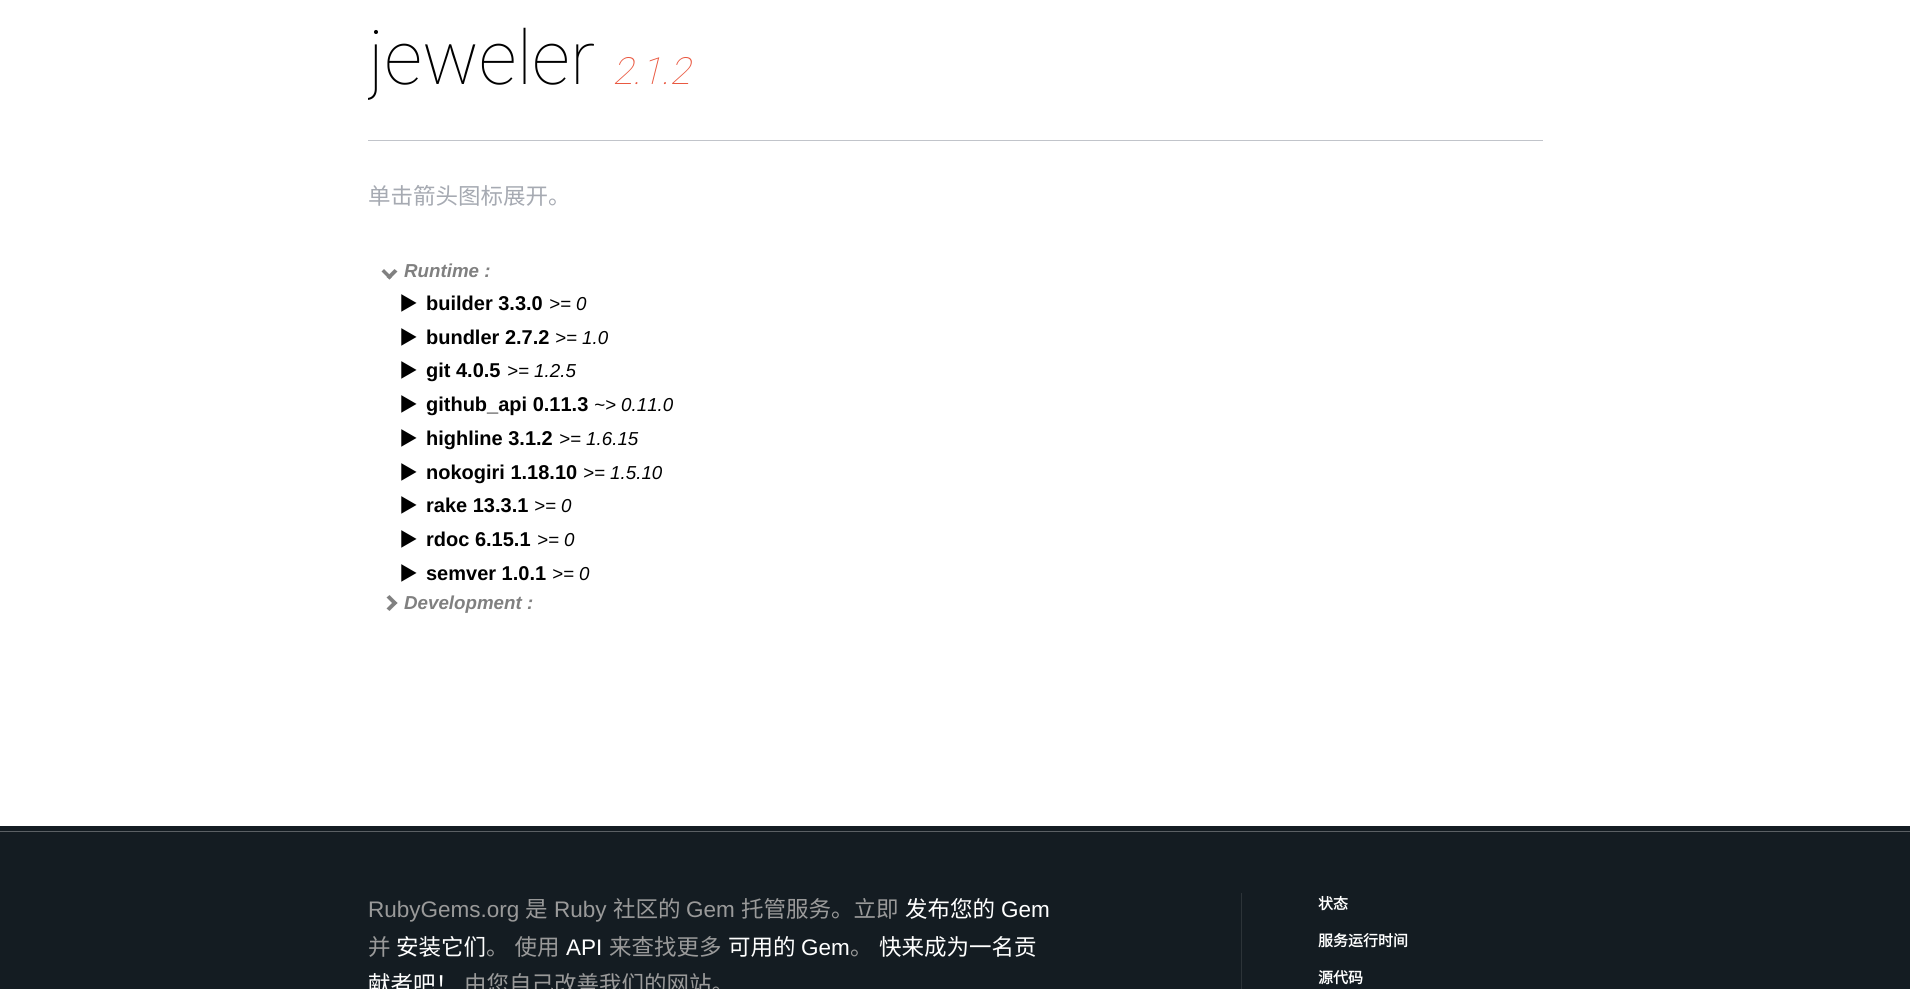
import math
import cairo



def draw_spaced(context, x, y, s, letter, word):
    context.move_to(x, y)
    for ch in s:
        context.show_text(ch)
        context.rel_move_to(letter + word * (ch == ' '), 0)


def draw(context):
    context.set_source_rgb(1, 1, 1)
    context.paint()
    context.set_source_rgb(193 / 255, 196 / 255, 202 / 255)
    context.rectangle(368, 140, 1175, 1)
    context.fill()
    context.set_source_rgb(128 / 255, 128 / 255, 128 / 255)
    context.new_path()
    context.move_to(397.5, 271.5)
    context.line_to(389.5, 279.5)
    context.line_to(386.5, 277)
    context.line_to(394.5, 269)
    context.close_path()
    context.fill()
    context.new_path()
    context.move_to(392, 277)
    context.line_to(389.5, 279.5)
    context.line_to(381.5, 271.5)
    context.line_to(384, 269)
    context.close_path()
    context.fill()
    context.new_path()
    context.move_to(389.5, 595)
    context.line_to(397.5, 603)
    context.line_to(394.5, 605.5)
    context.line_to(386.5, 597.5)
    context.close_path()
    context.fill()
    context.new_path()
    context.move_to(394.5, 600.5)
    context.line_to(397.5, 603)
    context.line_to(389.5, 611)
    context.line_to(386.5, 608.5)
    context.close_path()
    context.fill()
    context.set_source_rgb(20 / 255, 28 / 255, 34 / 255)
    context.rectangle(0, 826, 1910, 5)
    context.fill()
    context.rectangle(0, 832, 1910, 157)
    context.fill()
    context.set_source_rgb(91 / 255, 96 / 255, 100 / 255)
    context.rectangle(0, 831, 1910, 1)
    context.fill()
    context.set_source_rgb(44 / 255, 51 / 255, 56 / 255)
    context.rectangle(1241, 893, 1, 96)
    context.fill()
    context.save()
    context.rectangle(368, 0, 1175, 613)
    context.clip()
    context.select_font_face("Roboto Thin")
    context.set_font_size(75)
    context.set_source_rgb(0, 0, 0)
    context.move_to(368, 84)
    context.show_text("jeweler")
    context.restore()
    context.select_font_face("Roboto Thin", cairo.FontSlant.ITALIC)
    context.set_font_size(37.5)
    context.set_source_rgb(233 / 255, 87 / 255, 63 / 255)
    context.move_to(612, 84)
    context.show_text("2.1.2")
    context.select_font_face("Noto Sans CJK SC")
    context.set_font_size(22.5)
    context.set_source_rgb(166 / 255, 170 / 255, 178 / 255)
    context.move_to(368, 204)
    context.show_text("单击箭头图标展开。")
    context.select_font_face("Liberation Sans", cairo.FontSlant.ITALIC, cairo.FontWeight.BOLD)
    context.set_font_size(18.75)
    context.set_source_rgb(128 / 255, 128 / 255, 128 / 255)
    context.move_to(404, 277)
    context.show_text("Runtime :")
    context.select_font_face("Noto Sans CJK SC")
    context.set_source_rgb(0, 0, 0)
    context.move_to(399, 310)
    context.show_text("▶")
    context.select_font_face("Liberation Sans", cairo.FontSlant.NORMAL, cairo.FontWeight.BOLD)
    context.set_font_size(20)
    context.move_to(426, 310)
    context.show_text("builder 3.3.0")
    context.select_font_face("Liberation Sans", cairo.FontSlant.ITALIC)
    context.set_font_size(18.75)
    context.move_to(549, 310)
    context.show_text(">= 0")
    context.select_font_face("Noto Sans CJK SC")
    context.move_to(399, 344)
    context.show_text("▶")
    context.select_font_face("Liberation Sans", cairo.FontSlant.NORMAL, cairo.FontWeight.BOLD)
    context.set_font_size(20)
    context.move_to(426, 344)
    context.show_text("bundler 2.7.2")
    context.select_font_face("Liberation Sans", cairo.FontSlant.ITALIC)
    context.set_font_size(18.75)
    context.move_to(555, 344)
    context.show_text(">= 1.0")
    context.select_font_face("Noto Sans CJK SC")
    context.move_to(399, 377)
    context.show_text("▶")
    context.select_font_face("Liberation Sans", cairo.FontSlant.NORMAL, cairo.FontWeight.BOLD)
    context.set_font_size(20)
    context.move_to(426, 377)
    context.show_text("git 4.0.5")
    context.select_font_face("Liberation Sans", cairo.FontSlant.ITALIC)
    context.set_font_size(18.75)
    context.move_to(507, 377)
    context.show_text(">= 1.2.5")
    context.select_font_face("Noto Sans CJK SC")
    context.move_to(399, 411)
    context.show_text("▶")
    context.select_font_face("Liberation Sans", cairo.FontSlant.NORMAL, cairo.FontWeight.BOLD)
    context.set_font_size(20)
    context.move_to(426, 411)
    context.show_text("github_api 0.11.3")
    context.select_font_face("Liberation Sans", cairo.FontSlant.ITALIC)
    context.set_font_size(18.75)
    context.move_to(594, 411)
    context.show_text("~> 0.11.0")
    context.select_font_face("Noto Sans CJK SC")
    context.move_to(399, 445)
    context.show_text("▶")
    context.select_font_face("Liberation Sans", cairo.FontSlant.NORMAL, cairo.FontWeight.BOLD)
    context.set_font_size(20)
    context.move_to(426, 445)
    context.show_text("highline 3.1.2")
    context.select_font_face("Liberation Sans", cairo.FontSlant.ITALIC)
    context.set_font_size(18.75)
    context.move_to(559, 445)
    context.show_text(">= 1.6.15")
    context.select_font_face("Noto Sans CJK SC")
    context.move_to(399, 479)
    context.show_text("▶")
    context.select_font_face("Liberation Sans", cairo.FontSlant.NORMAL, cairo.FontWeight.BOLD)
    context.set_font_size(20)
    context.move_to(426, 479)
    context.show_text("nokogiri 1.18.10")
    context.select_font_face("Liberation Sans", cairo.FontSlant.ITALIC)
    context.set_font_size(18.75)
    context.move_to(583, 479)
    context.show_text(">= 1.5.10")
    context.select_font_face("Noto Sans CJK SC")
    context.move_to(399, 512)
    context.show_text("▶")
    context.select_font_face("Liberation Sans", cairo.FontSlant.NORMAL, cairo.FontWeight.BOLD)
    context.set_font_size(20)
    context.move_to(426, 512)
    context.show_text("rake 13.3.1")
    context.select_font_face("Liberation Sans", cairo.FontSlant.ITALIC)
    context.set_font_size(18.75)
    context.move_to(534, 512)
    context.show_text(">= 0")
    context.select_font_face("Noto Sans CJK SC")
    context.move_to(399, 546)
    context.show_text("▶")
    context.select_font_face("Liberation Sans", cairo.FontSlant.NORMAL, cairo.FontWeight.BOLD)
    context.set_font_size(20)
    context.move_to(426, 546)
    context.show_text("rdoc 6.15.1")
    context.select_font_face("Liberation Sans", cairo.FontSlant.ITALIC)
    context.set_font_size(18.75)
    context.move_to(537, 546)
    context.show_text(">= 0")
    context.select_font_face("Noto Sans CJK SC")
    context.move_to(399, 580)
    context.show_text("▶")
    context.select_font_face("Liberation Sans", cairo.FontSlant.NORMAL, cairo.FontWeight.BOLD)
    context.set_font_size(20)
    context.move_to(426, 580)
    context.show_text("semver 1.0.1")
    context.select_font_face("Liberation Sans", cairo.FontSlant.ITALIC)
    context.set_font_size(18.75)
    context.move_to(552, 580)
    context.show_text(">= 0")
    context.select_font_face("Liberation Sans", cairo.FontSlant.ITALIC, cairo.FontWeight.BOLD)
    context.set_source_rgb(128 / 255, 128 / 255, 128 / 255)
    context.move_to(404, 609)
    context.show_text("Development :")
    context.select_font_face("Liberation Sans")
    context.set_font_size(22.5)
    context.set_source_rgb(154 / 255, 154 / 255, 154 / 255)
    context.move_to(368, 917)
    context.show_text("RubyGems.org")
    context.select_font_face("Noto Sans CJK SC")
    context.move_to(525, 917)
    context.show_text("是")
    context.select_font_face("Liberation Sans")
    context.move_to(554, 917)
    context.show_text("Ruby")
    context.select_font_face("Noto Sans CJK SC")
    context.move_to(613, 917)
    context.show_text("社区的")
    context.select_font_face("Liberation Sans")
    context.move_to(686, 917)
    context.show_text("Gem")
    context.select_font_face("Noto Sans CJK SC")
    context.move_to(741, 917)
    context.show_text("托管服务。立即")
    context.set_source_rgb(1, 1, 1)
    context.move_to(905, 917)
    context.show_text("发布您的")
    context.select_font_face("Liberation Sans")
    context.move_to(1001, 917)
    context.show_text("Gem")
    context.select_font_face("Noto Sans CJK SC")
    context.set_source_rgb(154 / 255, 154 / 255, 154 / 255)
    context.move_to(368, 955)
    context.show_text("并")
    context.set_source_rgb(1, 1, 1)
    context.move_to(396, 955)
    context.show_text("安装它们")
    context.set_source_rgb(154 / 255, 154 / 255, 154 / 255)
    draw_spaced(context, 486, 955, "。 使用", 0, 1)
    context.select_font_face("Liberation Sans")
    context.set_source_rgb(1, 1, 1)
    context.move_to(566, 955)
    context.show_text("API")
    context.select_font_face("Noto Sans CJK SC")
    context.set_source_rgb(154 / 255, 154 / 255, 154 / 255)
    context.move_to(609, 955)
    context.show_text("来查找更多")
    context.set_source_rgb(1, 1, 1)
    context.move_to(728, 955)
    context.show_text("可用的")
    context.select_font_face("Liberation Sans")
    context.move_to(801, 955)
    context.show_text("Gem")
    context.select_font_face("Noto Sans CJK SC")
    context.set_source_rgb(154 / 255, 154 / 255, 154 / 255)
    context.move_to(850, 955)
    context.show_text("。")
    context.set_source_rgb(1, 1, 1)
    context.move_to(879, 955)
    context.show_text("快来成为一名贡")
    context.move_to(368, 992)
    context.show_text("献者吧！")
    context.set_source_rgb(154 / 255, 154 / 255, 154 / 255)
    context.move_to(464, 992)
    context.show_text("由您自己改善我们的网站。")
    context.select_font_face("Noto Sans CJK SC", cairo.FontSlant.NORMAL, cairo.FontWeight.BOLD)
    context.set_font_size(15)
    context.set_source_rgb(1, 1, 1)
    context.move_to(1318, 909)
    context.show_text("状态")
    context.move_to(1318, 946)
    context.show_text("服务运行时间")
    context.move_to(1318, 983)
    context.show_text("源代码")


surface = cairo.ImageSurface(cairo.Format.RGB24, 1910, 989)
context = cairo.Context(surface)
options = cairo.FontOptions()
options.set_hint_metrics(cairo.HintMetrics.OFF)
options.set_hint_style(cairo.HintStyle.NONE)
context.set_font_options(options)
context.set_miter_limit(4)
draw(context)
surface.write_to_png("out.png")
